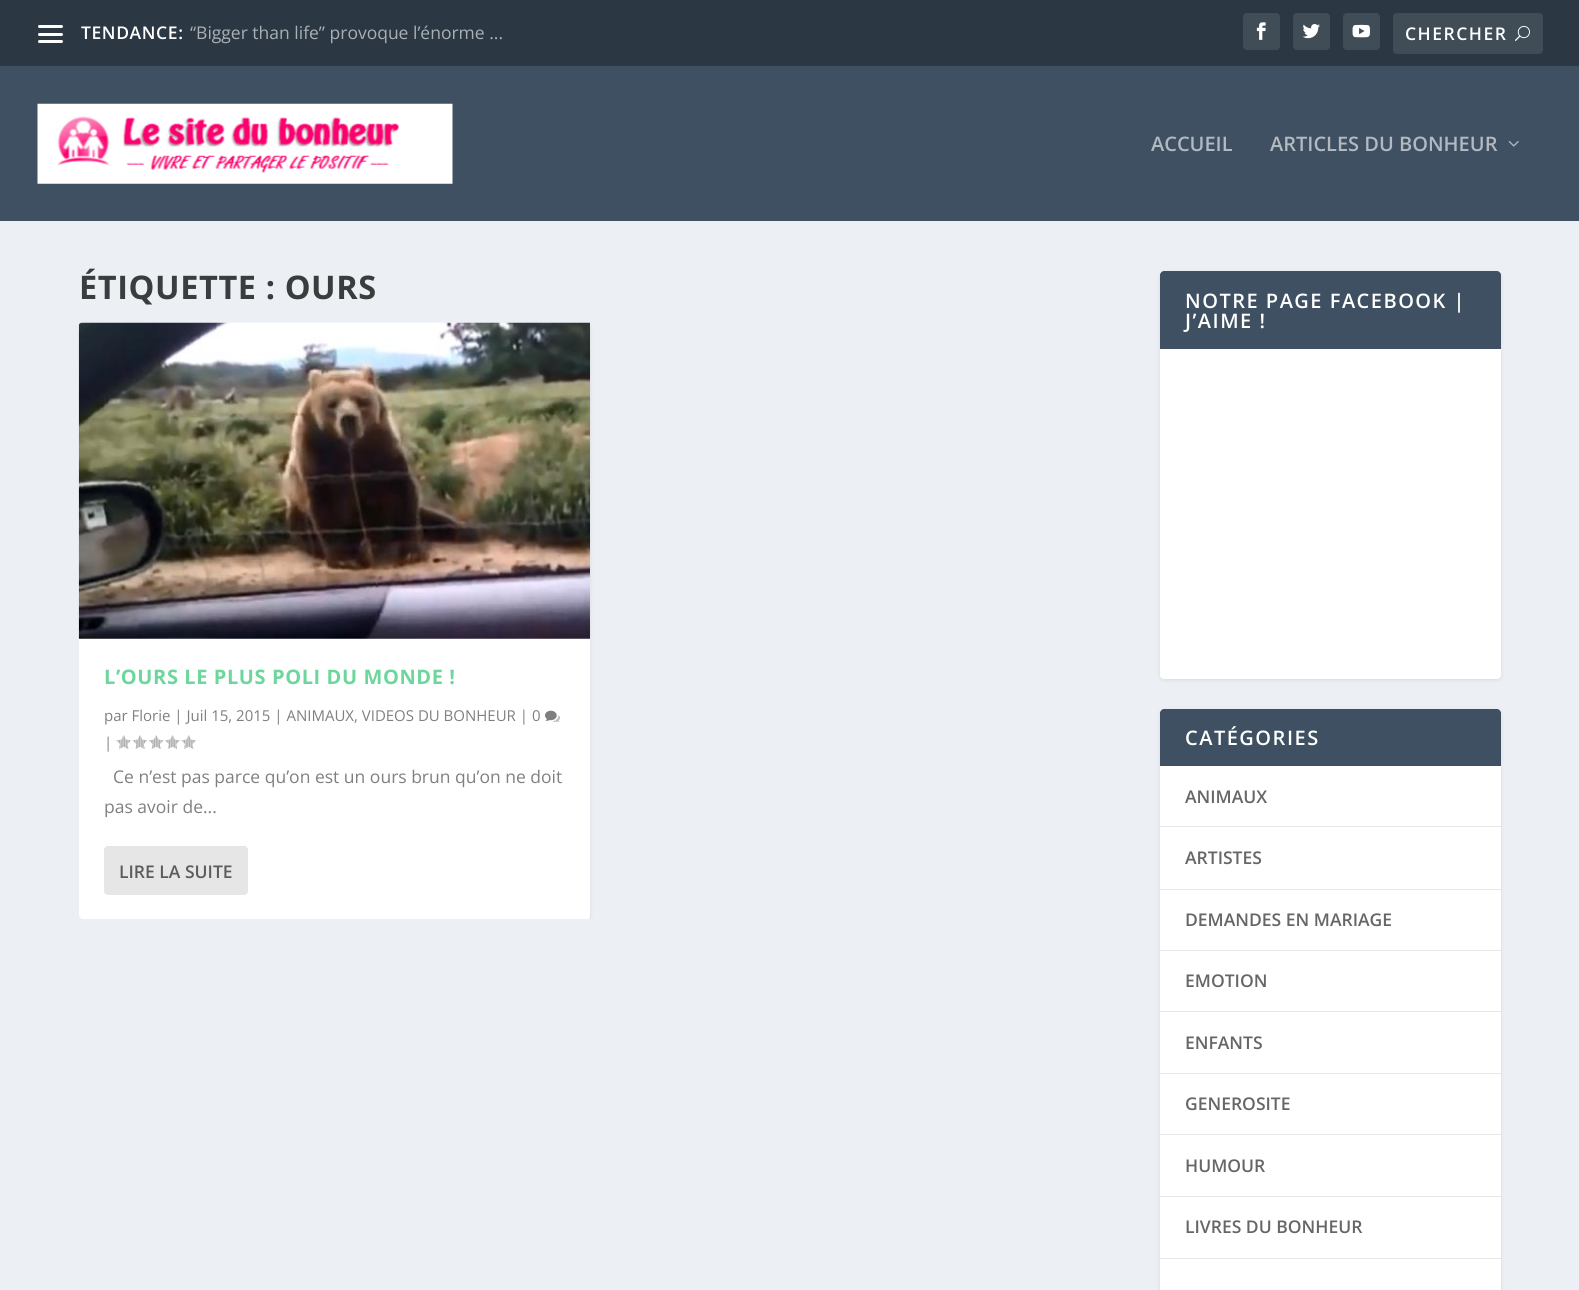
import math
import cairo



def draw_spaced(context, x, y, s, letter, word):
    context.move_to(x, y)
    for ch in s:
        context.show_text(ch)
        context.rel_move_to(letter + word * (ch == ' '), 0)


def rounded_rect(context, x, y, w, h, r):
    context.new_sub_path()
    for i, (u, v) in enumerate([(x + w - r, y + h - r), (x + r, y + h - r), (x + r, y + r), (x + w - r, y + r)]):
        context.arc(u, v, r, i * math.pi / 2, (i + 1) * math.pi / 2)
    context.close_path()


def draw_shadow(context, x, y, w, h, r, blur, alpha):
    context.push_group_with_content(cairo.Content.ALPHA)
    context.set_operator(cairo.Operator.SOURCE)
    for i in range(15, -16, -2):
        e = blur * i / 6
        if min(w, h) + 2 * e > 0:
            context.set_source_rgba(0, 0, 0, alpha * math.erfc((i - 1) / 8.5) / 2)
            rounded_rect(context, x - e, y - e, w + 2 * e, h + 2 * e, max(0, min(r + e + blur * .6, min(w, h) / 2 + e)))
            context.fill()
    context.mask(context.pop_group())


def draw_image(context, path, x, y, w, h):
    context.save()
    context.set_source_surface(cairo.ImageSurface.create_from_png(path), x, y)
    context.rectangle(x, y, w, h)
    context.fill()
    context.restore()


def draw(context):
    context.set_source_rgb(236 / 255, 240 / 255, 245 / 255)
    context.paint()
    context.set_source_rgb(43 / 255, 56 / 255, 67 / 255)
    context.rectangle(0, 0, 1579, 66)
    context.fill()
    context.set_source_rgb(1, 1, 1)
    rounded_rect(context, 38, 25, 25, 3, 1.5)
    context.fill()
    rounded_rect(context, 38, 33, 25, 3, 1.5)
    context.fill()
    rounded_rect(context, 38, 40, 25, 3, 1.5)
    context.fill()
    context.set_source_rgb(64 / 255, 76 / 255, 86 / 255)
    rounded_rect(context, 1243, 13, 37, 37, 4)
    context.fill()
    draw_image(context, "images/1.png", 1256, 22, 10, 18)
    rounded_rect(context, 1293, 13, 37, 37, 4)
    context.fill()
    draw_image(context, "images/2.png", 1302, 24, 18, 15)
    rounded_rect(context, 1343, 13, 37, 37, 4)
    context.fill()
    draw_image(context, "images/3.png", 1352, 24, 18, 14)
    rounded_rect(context, 1393, 13, 150, 41, 4)
    context.fill()
    draw_image(context, "images/4.png", 1515, 25, 15, 16)
    context.set_source_rgb(62 / 255, 80 / 255, 98 / 255)
    context.rectangle(0, 66, 1579, 155)
    context.fill()
    draw_image(context, "images/5.png", 37, 103, 416, 81)
    draw_image(context, "images/6.png", 1508, 141, 11, 6)
    context.save()
    rounded_rect(context, 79, 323, 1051, 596, 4)
    context.clip()
    context.set_source_rgb(0, 0, 0)
    draw_shadow(context, 79, 324, 511, 597, 4, 2, 0.1)
    context.restore()
    context.save()
    rounded_rect(context, 79, 323, 1051, 596, 4)
    context.clip()
    context.set_source_rgb(1, 1, 1)
    rounded_rect(context, 79, 323, 511, 597, 4)
    context.fill()
    context.restore()
    draw_image(context, "images/7.png", 78, 322, 512, 317)
    draw_image(context, "images/8.png", 545, 710, 15, 12)
    draw_image(context, "images/9.png", 116, 735, 15, 14)
    draw_image(context, "images/10.png", 132, 735, 16, 14)
    draw_image(context, "images/11.png", 149, 735, 15, 14)
    draw_image(context, "images/12.png", 165, 735, 15, 14)
    draw_image(context, "images/9.png", 181, 735, 15, 14)
    context.set_source_rgb(230 / 255, 230 / 255, 230 / 255)
    rounded_rect(context, 104, 846, 144, 49, 4)
    context.fill()
    context.set_source_rgb(0, 0, 0)
    draw_shadow(context, 1160, 273, 341, 407, 4, 2, 0.1)
    context.set_source_rgb(1, 1, 1)
    rounded_rect(context, 1160, 271, 341, 408, 4)
    context.fill()
    context.set_source_rgb(62 / 255, 80 / 255, 98 / 255)
    context.new_path()
    context.move_to(1164, 271)
    context.line_to(1497, 271)
    context.curve_to(1499, 271, 1501, 273, 1501, 275)
    context.line_to(1501, 349)
    context.line_to(1160, 349)
    context.line_to(1160, 275)
    context.curve_to(1160, 273, 1162, 271, 1164, 271)
    context.close_path()
    context.fill()
    context.set_source_rgb(0, 0, 0)
    draw_shadow(context, 1160, 710, 341, 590, 4, 2, 0.1)
    context.set_source_rgb(1, 1, 1)
    rounded_rect(context, 1160, 709, 341, 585, 4)
    context.fill()
    context.set_source_rgb(62 / 255, 80 / 255, 98 / 255)
    context.new_path()
    context.move_to(1164, 709)
    context.line_to(1497, 709)
    context.curve_to(1499, 709, 1501, 711, 1501, 713)
    context.line_to(1501, 766)
    context.line_to(1160, 766)
    context.line_to(1160, 713)
    context.curve_to(1160, 711, 1162, 709, 1164, 709)
    context.close_path()
    context.fill()
    context.set_source_rgb(230 / 255, 230 / 255, 230 / 255)
    context.rectangle(1160, 826, 341, 1)
    context.fill()
    context.rectangle(1160, 889, 341, 1)
    context.fill()
    context.rectangle(1160, 950, 341, 1)
    context.fill()
    context.rectangle(1160, 1011, 341, 1)
    context.fill()
    context.rectangle(1160, 1073, 341, 1)
    context.fill()
    context.rectangle(1160, 1134, 341, 1)
    context.fill()
    context.rectangle(1160, 1196, 341, 1)
    context.fill()
    context.rectangle(1160, 1258, 341, 1)
    context.fill()
    context.select_font_face("Open Sans SemiBold")
    context.set_font_size(17.5)
    context.set_source_rgb(1, 1, 1)
    draw_spaced(context, 81, 39, "TENDANCE:", 0.6, 0)
    context.select_font_face("Open Sans")
    context.set_source_rgb(170 / 255, 175 / 255, 180 / 255)
    context.move_to(190, 39)
    context.show_text("“Bigger than life” provoque l’énorme ...")
    context.select_font_face("Open Sans SemiBold")
    context.set_source_rgb(1, 1, 1)
    draw_spaced(context, 1405, 40, "CHERCHER", 1.5, 0)
    context.set_font_size(20)
    context.set_source_rgb(178 / 255, 185 / 255, 192 / 255)
    context.move_to(1151, 151)
    context.show_text("ACCUEIL")
    context.move_to(1270, 151)
    context.show_text("ARTICLES DU BONHEUR")
    context.select_font_face("Open Sans", cairo.FontSlant.NORMAL, cairo.FontWeight.BOLD)
    context.set_font_size(32.5)
    context.set_source_rgb(59 / 255, 60 / 255, 61 / 255)
    draw_spaced(context, 79, 299, "ÉTIQUETTE : OURS", 0.6, 0)
    context.set_font_size(20)
    context.set_source_rgb(109 / 255, 214 / 255, 156 / 255)
    draw_spaced(context, 104, 684, "L’OURS LE PLUS POLI DU MONDE !", 0.6, 0)
    context.select_font_face("Open Sans")
    context.set_font_size(15)
    context.set_source_rgb(128 / 255, 128 / 255, 128 / 255)
    context.move_to(104, 721)
    context.show_text("par Florie | Juil 15, 2015 | ANIMAUX, VIDEOS DU BONHEUR | 0")
    context.move_to(104, 748)
    context.show_text("|")
    context.set_font_size(17.5)
    context.move_to(113, 783)
    context.show_text("Ce n’est pas parce qu’on est un ours brun qu’on ne doit")
    context.move_to(104, 813)
    context.show_text("pas avoir de...")
    context.select_font_face("Open Sans SemiBold")
    context.set_source_rgb(92 / 255, 92 / 255, 92 / 255)
    context.move_to(119, 878)
    context.show_text("LIRE LA SUITE")
    context.set_font_size(20)
    context.set_source_rgb(1, 1, 1)
    draw_spaced(context, 1185, 308, "NOTRE PAGE FACEBOOK |", 1.5, 0)
    draw_spaced(context, 1185, 328, "J’AIME !", 1.5, 0)
    draw_spaced(context, 1185, 745, "CATÉGORIES", 1.5, 0)
    context.set_font_size(17.5)
    context.set_source_rgb(102 / 255, 102 / 255, 102 / 255)
    context.move_to(1185, 803)
    context.show_text("ANIMAUX")
    context.move_to(1185, 864)
    context.show_text("ARTISTES")
    context.move_to(1185, 926)
    context.show_text("DEMANDES EN MARIAGE")
    context.move_to(1185, 987)
    context.show_text("EMOTION")
    context.move_to(1185, 1049)
    context.show_text("ENFANTS")
    context.move_to(1185, 1110)
    context.show_text("GENEROSITE")
    context.move_to(1185, 1172)
    context.show_text("HUMOUR")
    context.move_to(1185, 1233)
    context.show_text("LIVRES DU BONHEUR")


surface = cairo.ImageSurface(cairo.Format.RGB24, 1579, 1290)
context = cairo.Context(surface)
options = cairo.FontOptions()
options.set_hint_metrics(cairo.HintMetrics.OFF)
options.set_hint_style(cairo.HintStyle.NONE)
context.set_font_options(options)
context.set_miter_limit(4)
draw(context)
surface.write_to_png("out.png")
